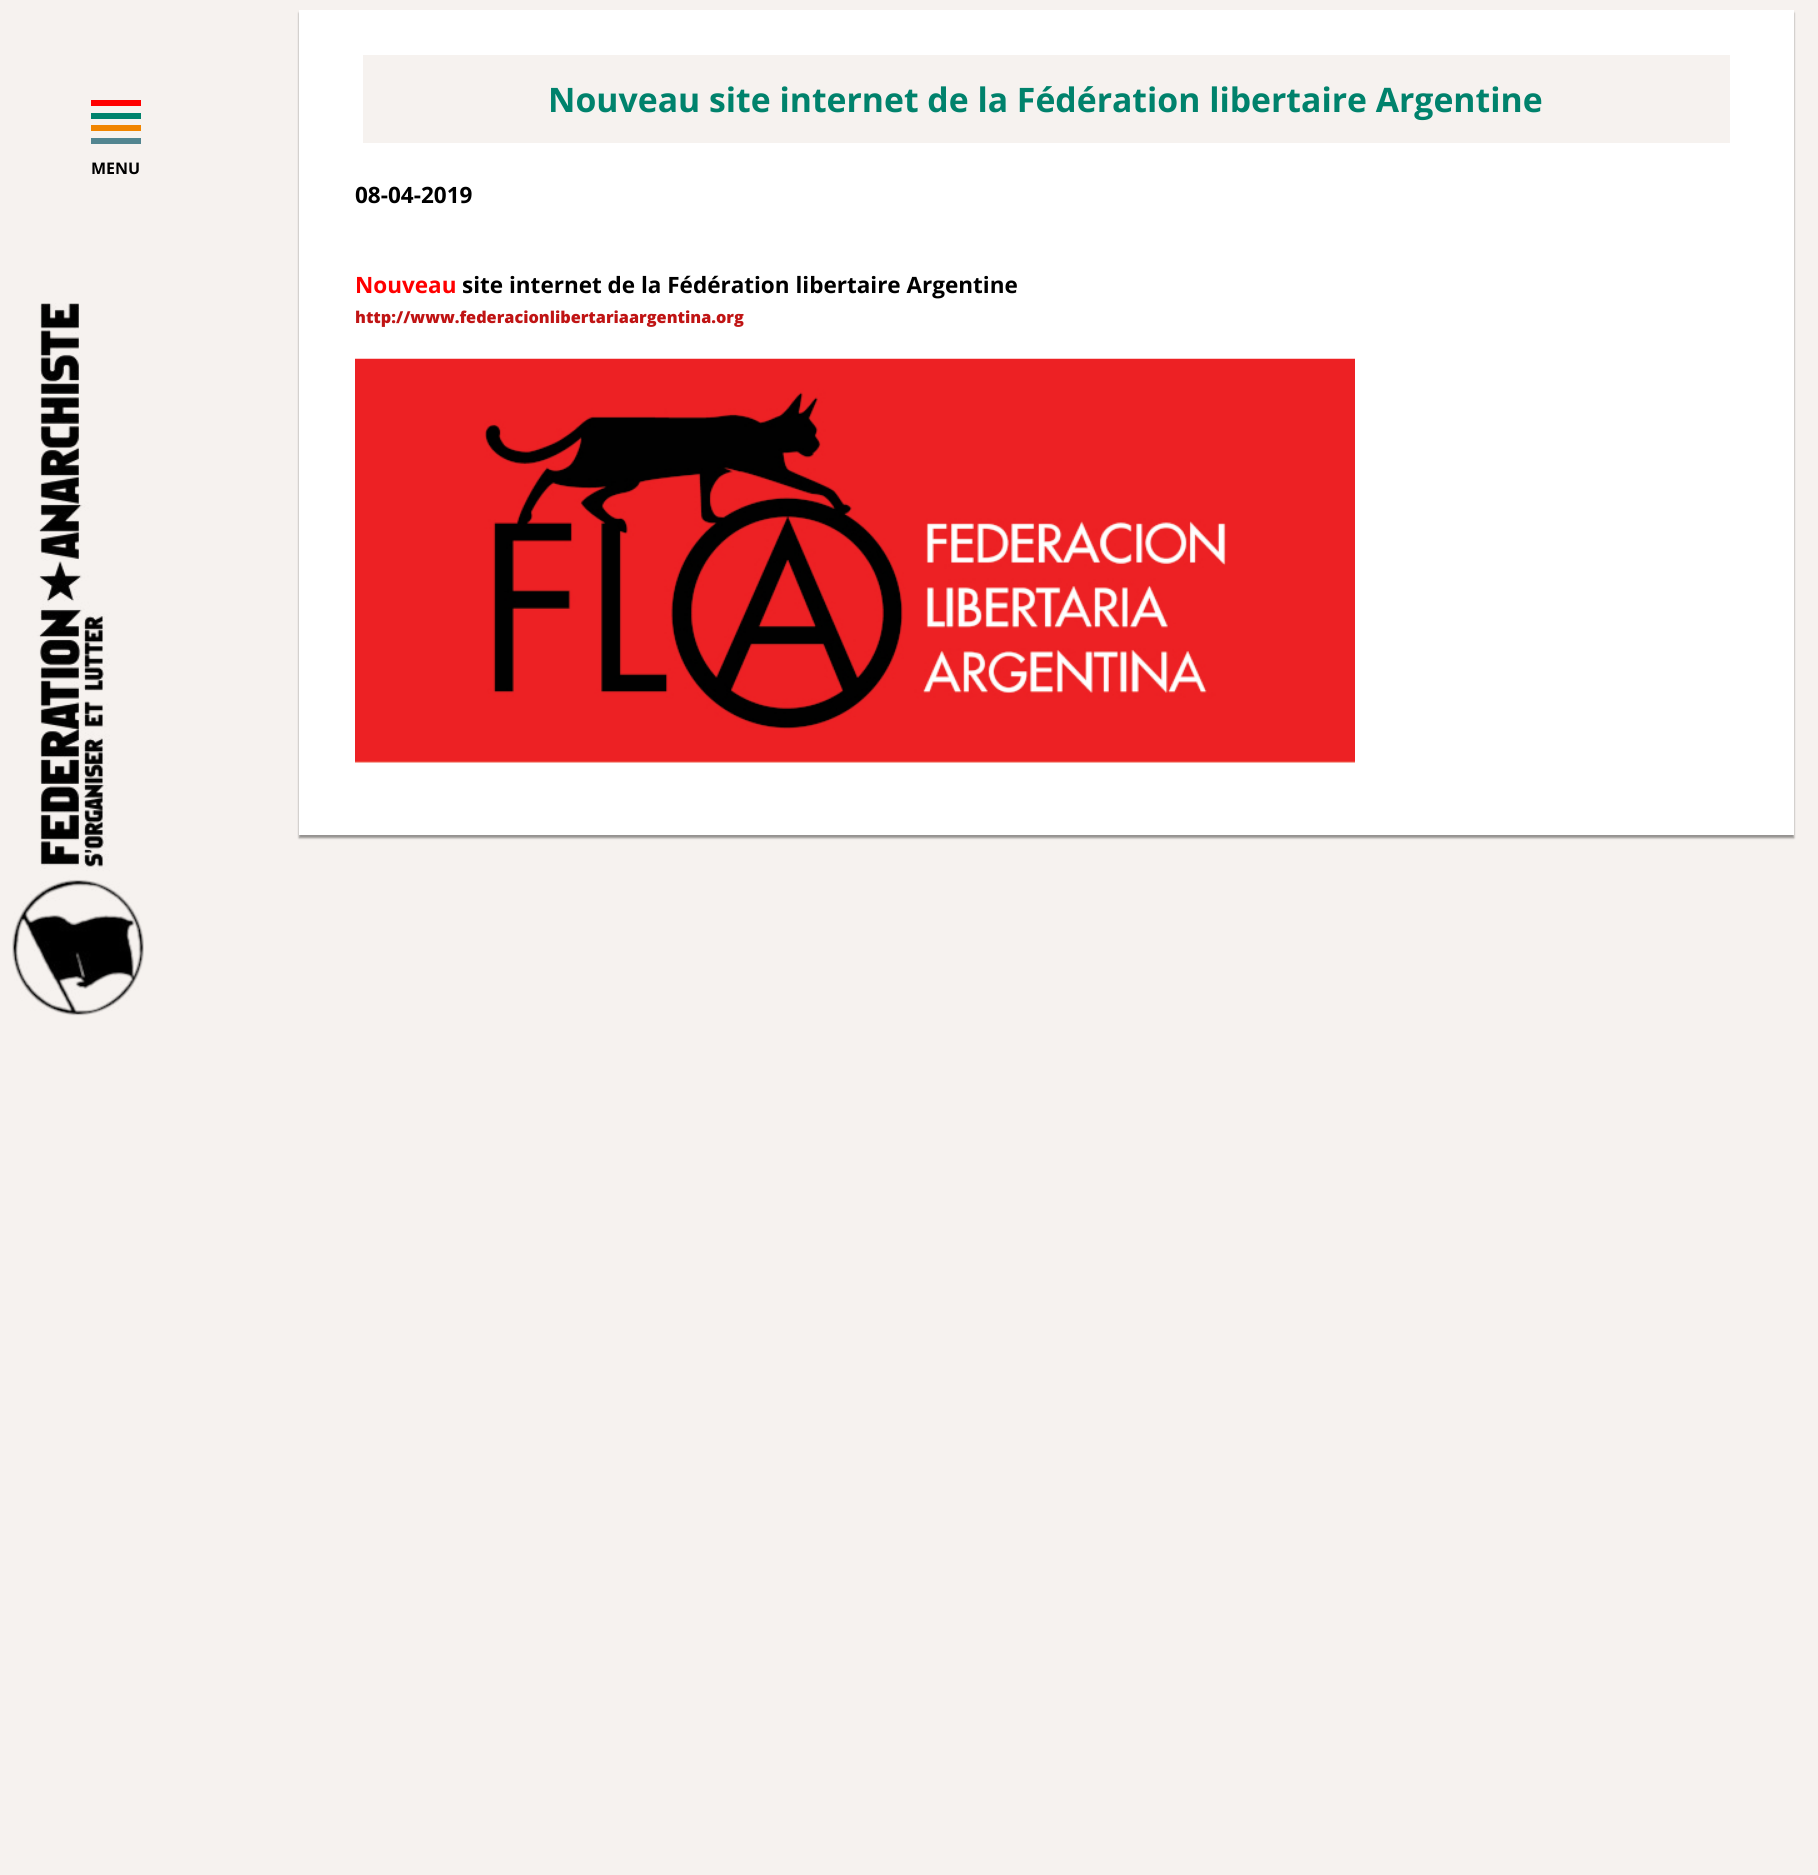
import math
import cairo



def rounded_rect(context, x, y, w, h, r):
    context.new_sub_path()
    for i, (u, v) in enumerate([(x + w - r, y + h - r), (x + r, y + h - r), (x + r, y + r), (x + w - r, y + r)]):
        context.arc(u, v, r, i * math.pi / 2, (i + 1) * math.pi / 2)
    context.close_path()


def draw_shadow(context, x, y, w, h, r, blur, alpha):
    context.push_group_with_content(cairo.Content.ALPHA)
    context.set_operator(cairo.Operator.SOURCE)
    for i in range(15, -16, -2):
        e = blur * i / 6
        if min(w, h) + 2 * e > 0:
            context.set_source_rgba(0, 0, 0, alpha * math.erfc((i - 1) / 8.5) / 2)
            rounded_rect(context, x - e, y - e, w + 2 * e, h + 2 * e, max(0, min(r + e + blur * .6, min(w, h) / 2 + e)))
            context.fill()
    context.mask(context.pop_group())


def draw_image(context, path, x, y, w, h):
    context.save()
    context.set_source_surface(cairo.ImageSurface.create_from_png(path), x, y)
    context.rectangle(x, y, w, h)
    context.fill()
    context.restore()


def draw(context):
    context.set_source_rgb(246 / 255, 242 / 255, 239 / 255)
    context.paint()
    context.set_source_rgb(1, 0, 0)
    context.rectangle(91, 100, 50, 6)
    context.fill()
    context.set_source_rgb(0, 130 / 255, 108 / 255)
    context.rectangle(91, 113, 50, 6)
    context.fill()
    context.set_source_rgb(241 / 255, 133 / 255, 0)
    context.rectangle(91, 125, 50, 6)
    context.fill()
    context.set_source_rgb(82 / 255, 133 / 255, 144 / 255)
    context.rectangle(91, 138, 50, 6)
    context.fill()
    draw_image(context, "images/1.png", 12, 303, 132, 713)
    context.set_source_rgb(0, 0, 0)
    draw_shadow(context, 299, 13, 1495, 825, 0, 1, 0.4)
    context.set_source_rgb(1, 1, 1)
    context.rectangle(299, 10, 1495, 825)
    context.fill()
    context.set_source_rgb(246 / 255, 242 / 255, 239 / 255)
    context.rectangle(363, 55, 1367, 88)
    context.fill()
    draw_image(context, "images/2.png", 355, 358, 1000, 405)
    context.select_font_face("Open Sans", cairo.FontSlant.NORMAL, cairo.FontWeight.BOLD)
    context.set_font_size(16)
    context.set_source_rgb(0, 0, 0)
    context.move_to(91, 174)
    context.show_text("MENU")
    context.set_font_size(33.75)
    context.set_source_rgb(0, 130 / 255, 108 / 255)
    context.move_to(548, 112)
    context.show_text("Nouveau site internet de la Fédération libertaire Argentine")
    context.set_font_size(22.5)
    context.set_source_rgb(0, 0, 0)
    context.move_to(355, 203)
    context.show_text("08-04-2019")
    context.set_source_rgb(1, 0, 0)
    context.move_to(355, 293)
    context.show_text("Nouveau")
    context.set_source_rgb(0, 0, 0)
    context.move_to(462, 293)
    context.show_text("site internet de la Fédération libertaire Argentine")
    context.select_font_face("Open Sans ExtraBold")
    context.set_font_size(16.25)
    context.set_source_rgb(192 / 255, 20 / 255, 20 / 255)
    context.move_to(355, 323)
    context.show_text("http://www.federacionlibertariaargentina.org")


surface = cairo.ImageSurface(cairo.Format.RGB24, 1818, 1875)
context = cairo.Context(surface)
options = cairo.FontOptions()
options.set_hint_metrics(cairo.HintMetrics.OFF)
options.set_hint_style(cairo.HintStyle.NONE)
context.set_font_options(options)
context.set_miter_limit(4)
draw(context)
surface.write_to_png("out.png")
